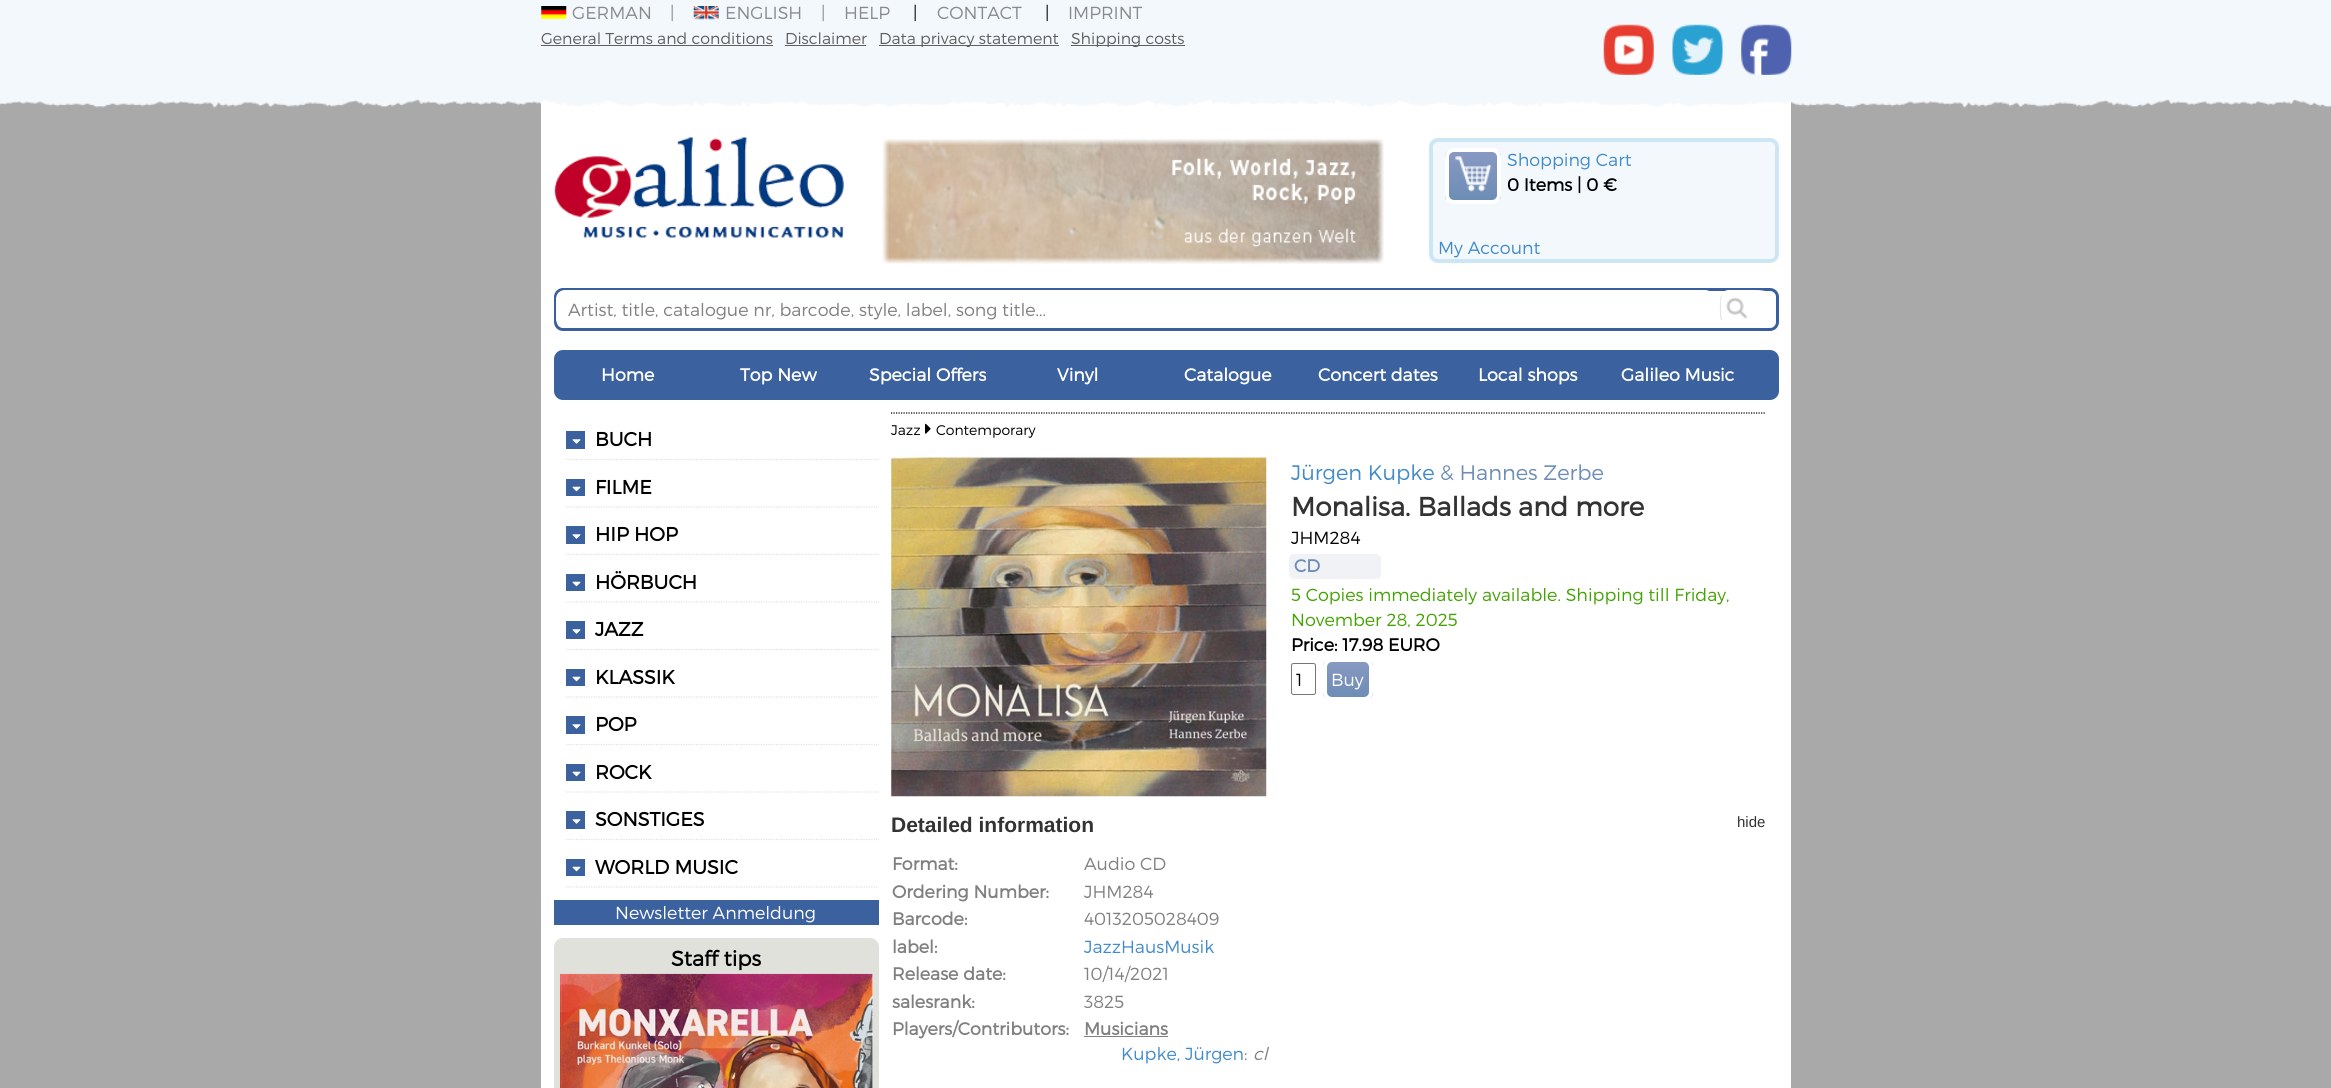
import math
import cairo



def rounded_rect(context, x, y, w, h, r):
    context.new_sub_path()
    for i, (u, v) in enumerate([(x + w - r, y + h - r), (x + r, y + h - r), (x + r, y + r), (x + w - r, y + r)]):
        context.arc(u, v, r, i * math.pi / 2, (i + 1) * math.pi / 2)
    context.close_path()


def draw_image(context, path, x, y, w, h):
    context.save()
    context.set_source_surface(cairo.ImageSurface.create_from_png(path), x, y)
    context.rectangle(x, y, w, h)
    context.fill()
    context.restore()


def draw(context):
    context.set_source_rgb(169 / 255, 169 / 255, 169 / 255)
    context.paint()
    context.set_source_rgb(1, 1, 1)
    context.rectangle(541, 99, 1250, 989)
    context.fill()
    draw_image(context, "images/1.png", 0, 0, 2331, 108)
    draw_image(context, "images/2.png", 541, 6, 26, 14)
    draw_image(context, "images/3.png", 693, 6, 26, 14)
    context.set_source_rgb(95 / 255, 95 / 255, 95 / 255)
    context.rectangle(541, 45, 232, 1)
    context.fill()
    context.rectangle(785, 45, 81, 1)
    context.fill()
    context.rectangle(879, 45, 180, 1)
    context.fill()
    context.rectangle(1071, 45, 114, 1)
    context.fill()
    draw_image(context, "images/4.png", 1603, 24, 51, 51)
    draw_image(context, "images/5.png", 1672, 24, 51, 51)
    draw_image(context, "images/6.png", 1741, 24, 51, 51)
    draw_image(context, "images/7.png", 554, 137, 290, 101)
    draw_image(context, "images/8.png", 882, 139, 502, 125)
    context.set_source_rgb(243 / 255, 248 / 255, 252 / 255)
    rounded_rect(context, 1431, 140, 346, 121, 7)
    context.fill_preserve()
    context.set_source_rgb(205 / 255, 230 / 255, 245 / 255)
    context.set_line_width(4)
    context.stroke()
    context.save()
    rounded_rect(context, 1445, 148, 56, 56, 9)
    context.clip()
    gradient = cairo.LinearGradient(1473, 151, 1473, 200)
    gradient.add_color_stop_rgba(0, 136 / 255, 153 / 255, 194 / 255, 1)
    gradient.add_color_stop_rgba(1, 109 / 255, 141 / 255, 181 / 255, 1)
    context.set_source(gradient)
    context.rectangle(1445, 151, 56, 49)
    context.fill()
    context.restore()
    rounded_rect(context, 1447, 150, 52, 52, 7)
    context.set_source_rgb(1, 1, 1)
    context.stroke()
    draw_image(context, "images/9.png", 1455, 156, 37, 36)
    rounded_rect(context, 555.5, 289.5, 1222, 40, 7.5)
    context.set_source_rgb(57 / 255, 95 / 255, 158 / 255)
    context.set_line_width(3)
    context.stroke()
    context.set_source_rgb(1, 1, 1)
    rounded_rect(context, 556, 290, 1158, 38, 9)
    context.fill()
    draw_image(context, "images/10.png", 1726, 297, 22, 22)
    context.new_path()
    context.move_to(1729, 290)
    context.curve_to(1725, 290, 1723, 292, 1721, 294)
    context.line_to(1722, 296)
    context.curve_to(1723, 295, 1724, 295, 1726, 294)
    context.curve_to(1729, 293, 1762, 293, 1765, 295)
    context.line_to(1768, 292)
    context.curve_to(1766, 291, 1762, 290, 1756, 290)
    context.close_path()
    context.fill()
    context.set_source_rgb(223 / 255, 227 / 255, 230 / 255)
    context.new_path()
    context.move_to(1720, 302)
    context.curve_to(1720, 299.5, 1720.5, 296.5, 1721.5, 294.5)
    context.line_to(1722, 296.5)
    context.curve_to(1720, 299.5, 1721, 304, 1721, 307.5)
    context.curve_to(1721, 311, 1720.5, 315.5, 1722, 318.5)
    context.line_to(1721.5, 321)
    context.curve_to(1719, 316, 1720, 307.5, 1720, 302)
    context.close_path()
    context.fill()
    context.set_source_rgb(59 / 255, 97 / 255, 159 / 255)
    rounded_rect(context, 554, 350, 1225, 50, 9)
    context.fill()
    context.new_path()
    context.move_to(566, 459.5)
    context.line_to(879, 459.5)
    context.set_source_rgb(225 / 255, 225 / 255, 220 / 255)
    context.set_line_width(1.2)
    context.set_dash([1.25, 1.25])
    context.stroke()
    context.set_source_rgb(59 / 255, 97 / 255, 159 / 255)
    context.rectangle(566, 431, 19, 18)
    context.fill()
    draw_image(context, "images/11.png", 572, 439, 9, 5)
    context.new_path()
    context.move_to(566, 507)
    context.line_to(879, 507)
    context.set_source_rgb(225 / 255, 225 / 255, 220 / 255)
    context.stroke()
    context.set_source_rgb(59 / 255, 97 / 255, 159 / 255)
    context.rectangle(566, 479, 19, 17)
    context.fill()
    draw_image(context, "images/12.png", 572, 486, 9, 6)
    context.new_path()
    context.move_to(566, 554.5)
    context.line_to(879, 554.5)
    context.set_source_rgb(225 / 255, 225 / 255, 220 / 255)
    context.stroke()
    context.set_source_rgb(59 / 255, 97 / 255, 159 / 255)
    context.rectangle(566, 526, 19, 18)
    context.fill()
    draw_image(context, "images/11.png", 572, 534, 9, 5)
    context.new_path()
    context.move_to(566, 602)
    context.line_to(879, 602)
    context.set_source_rgb(225 / 255, 225 / 255, 220 / 255)
    context.stroke()
    context.set_source_rgb(59 / 255, 97 / 255, 159 / 255)
    context.rectangle(566, 574, 19, 17)
    context.fill()
    draw_image(context, "images/12.png", 572, 581, 9, 6)
    context.new_path()
    context.move_to(566, 649.5)
    context.line_to(879, 649.5)
    context.set_source_rgb(225 / 255, 225 / 255, 220 / 255)
    context.stroke()
    context.set_source_rgb(59 / 255, 97 / 255, 159 / 255)
    context.rectangle(566, 621, 19, 18)
    context.fill()
    draw_image(context, "images/11.png", 572, 629, 9, 5)
    context.new_path()
    context.move_to(566, 697)
    context.line_to(879, 697)
    context.set_source_rgb(225 / 255, 225 / 255, 220 / 255)
    context.stroke()
    context.set_source_rgb(59 / 255, 97 / 255, 159 / 255)
    context.rectangle(566, 669, 19, 17)
    context.fill()
    draw_image(context, "images/12.png", 572, 676, 9, 6)
    context.new_path()
    context.move_to(566, 744.5)
    context.line_to(879, 744.5)
    context.set_source_rgb(225 / 255, 225 / 255, 220 / 255)
    context.stroke()
    context.set_source_rgb(59 / 255, 97 / 255, 159 / 255)
    context.rectangle(566, 716, 19, 18)
    context.fill()
    draw_image(context, "images/11.png", 572, 724, 9, 5)
    context.new_path()
    context.move_to(566, 792)
    context.line_to(879, 792)
    context.set_source_rgb(225 / 255, 225 / 255, 220 / 255)
    context.stroke()
    context.set_source_rgb(59 / 255, 97 / 255, 159 / 255)
    context.rectangle(566, 764, 19, 17)
    context.fill()
    draw_image(context, "images/12.png", 572, 771, 9, 6)
    context.new_path()
    context.move_to(566, 839.5)
    context.line_to(879, 839.5)
    context.set_source_rgb(225 / 255, 225 / 255, 220 / 255)
    context.stroke()
    context.set_source_rgb(59 / 255, 97 / 255, 159 / 255)
    context.rectangle(566, 811, 19, 18)
    context.fill()
    draw_image(context, "images/11.png", 572, 819, 9, 5)
    context.new_path()
    context.move_to(566, 887)
    context.line_to(879, 887)
    context.set_source_rgb(225 / 255, 225 / 255, 220 / 255)
    context.stroke()
    context.set_source_rgb(59 / 255, 97 / 255, 159 / 255)
    context.rectangle(566, 859, 19, 17)
    context.fill()
    draw_image(context, "images/12.png", 572, 866, 9, 6)
    context.rectangle(554, 900, 325, 25)
    context.fill()
    rounded_rect(context, 557, 941, 319, 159, 6)
    context.set_source_rgb(225 / 255, 225 / 255, 220 / 255)
    context.set_line_width(6)
    context.set_dash([])
    context.stroke()
    context.rectangle(560, 944, 313, 30)
    context.fill()
    draw_image(context, "images/13.png", 560, 973, 313, 115)
    context.new_path()
    context.move_to(891, 413)
    context.line_to(1766, 413)
    context.set_source_rgb(0, 0, 0)
    context.set_line_width(1.2)
    context.set_dash([1.25, 1.25])
    context.stroke()
    draw_image(context, "images/14.png", 925, 423, 6, 11)
    draw_image(context, "images/15.png", 891, 457, 376, 340)
    context.set_source_rgb(241 / 255, 242 / 255, 245 / 255)
    rounded_rect(context, 1287, 552, 96, 29, 7)
    context.fill_preserve()
    context.set_source_rgb(1, 1, 1)
    context.set_line_width(4)
    context.set_dash([])
    context.stroke()
    rounded_rect(context, 1291.5, 663.5, 24, 31, 2)
    context.set_source_rgb(118 / 255, 118 / 255, 118 / 255)
    context.set_line_width(1)
    context.stroke()
    context.save()
    rounded_rect(context, 1323, 658, 50, 43, 9)
    context.clip()
    gradient = cairo.LinearGradient(1348, 661, 1348, 698)
    gradient.add_color_stop_rgba(0, 136 / 255, 153 / 255, 194 / 255, 1)
    gradient.add_color_stop_rgba(1, 109 / 255, 141 / 255, 181 / 255, 1)
    context.set_source(gradient)
    context.rectangle(1323, 661, 50, 37)
    context.fill()
    context.restore()
    rounded_rect(context, 1325, 660, 46, 39, 7)
    context.set_source_rgb(1, 1, 1)
    context.set_line_width(4)
    context.stroke()
    context.set_source_rgb(128 / 255, 128 / 255, 128 / 255)
    context.rectangle(1084, 1036, 84, 1)
    context.fill()
    context.select_font_face("Montserrat Light")
    context.set_font_size(17.5)
    context.set_source_rgb(136 / 255, 138 / 255, 140 / 255)
    context.move_to(572, 19)
    context.show_text("GERMAN")
    context.move_to(670, 19)
    context.show_text("|")
    context.move_to(725, 19)
    context.show_text("ENGLISH")
    context.move_to(821, 19)
    context.show_text("|")
    context.move_to(844, 19)
    context.show_text("HELP")
    context.set_source_rgb(0, 0, 0)
    context.move_to(913, 19)
    context.show_text("|")
    context.set_source_rgb(136 / 255, 138 / 255, 140 / 255)
    context.move_to(937, 19)
    context.show_text("CONTACT")
    context.set_source_rgb(0, 0, 0)
    context.move_to(1045, 19)
    context.show_text("|")
    context.set_source_rgb(136 / 255, 138 / 255, 140 / 255)
    context.move_to(1068, 19)
    context.show_text("IMPRINT")
    context.set_font_size(15.75)
    context.set_source_rgb(95 / 255, 95 / 255, 95 / 255)
    context.move_to(541, 44)
    context.show_text("General Terms and conditions")
    context.move_to(785, 44)
    context.show_text("Disclaimer")
    context.move_to(879, 44)
    context.show_text("Data privacy statement")
    context.move_to(1071, 44)
    context.show_text("Shipping costs")
    context.set_font_size(17.5)
    context.set_source_rgb(66 / 255, 139 / 255, 202 / 255)
    context.move_to(1507, 166)
    context.show_text("Shopping Cart")
    context.select_font_face("Montserrat", cairo.FontSlant.NORMAL, cairo.FontWeight.BOLD)
    context.set_source_rgb(0, 0, 0)
    context.move_to(1507, 191)
    context.show_text("0 Items | 0 €")
    context.select_font_face("Montserrat Light")
    context.set_source_rgb(66 / 255, 139 / 255, 202 / 255)
    context.move_to(1438, 254)
    context.show_text("My Account")
    context.set_source_rgb(128 / 255, 128 / 255, 128 / 255)
    context.move_to(568, 316)
    context.show_text("Artist, title, catalogue nr, barcode, style, label, song title...")
    context.select_font_face("Montserrat", cairo.FontSlant.NORMAL, cairo.FontWeight.BOLD)
    context.set_source_rgb(1, 1, 1)
    context.move_to(601, 381)
    context.show_text("Home")
    context.move_to(740, 381)
    context.show_text("Top New")
    context.move_to(869, 381)
    context.show_text("Special Offers")
    context.move_to(1057, 381)
    context.show_text("Vinyl")
    context.move_to(1184, 381)
    context.show_text("Catalogue")
    context.move_to(1318, 381)
    context.show_text("Concert dates")
    context.move_to(1478, 381)
    context.show_text("Local shops")
    context.move_to(1621, 381)
    context.show_text("Galileo Music")
    context.set_font_size(19.25)
    context.set_source_rgb(0, 0, 0)
    context.move_to(595, 446)
    context.show_text("BUCH")
    context.move_to(595, 494)
    context.show_text("FILME")
    context.move_to(595, 541)
    context.show_text("HIP HOP")
    context.move_to(595, 589)
    context.show_text("HÖRBUCH")
    context.move_to(595, 636)
    context.show_text("JAZZ")
    context.move_to(595, 684)
    context.show_text("KLASSIK")
    context.move_to(595, 731)
    context.show_text("POP")
    context.move_to(595, 779)
    context.show_text("ROCK")
    context.move_to(595, 826)
    context.show_text("SONSTIGES")
    context.move_to(595, 874)
    context.show_text("WORLD MUSIC")
    context.select_font_face("Montserrat Light")
    context.set_font_size(17.5)
    context.set_source_rgb(1, 1, 1)
    context.move_to(615, 919)
    context.show_text("Newsletter Anmeldung")
    context.select_font_face("Montserrat", cairo.FontSlant.NORMAL, cairo.FontWeight.BOLD)
    context.set_font_size(21)
    context.set_source_rgb(0, 0, 0)
    context.move_to(671, 966)
    context.show_text("Staff tips")
    context.select_font_face("Montserrat Light")
    context.set_font_size(14)
    context.move_to(891, 435)
    context.show_text("Jazz")
    context.move_to(936, 435)
    context.show_text("Contemporary")
    context.set_font_size(21)
    context.set_source_rgb(66 / 255, 139 / 255, 202 / 255)
    context.move_to(1291, 480)
    context.show_text("Jürgen Kupke")
    context.set_source_rgb(109 / 255, 141 / 255, 181 / 255)
    context.move_to(1440, 480)
    context.show_text("& Hannes Zerbe")
    context.select_font_face("Montserrat", cairo.FontSlant.NORMAL, cairo.FontWeight.BOLD)
    context.set_font_size(26.25)
    context.set_source_rgb(51 / 255, 51 / 255, 51 / 255)
    context.move_to(1291, 516)
    context.show_text("Monalisa. Ballads and more")
    context.select_font_face("Montserrat Light")
    context.set_font_size(17.5)
    context.set_source_rgb(0, 0, 0)
    context.move_to(1291, 544)
    context.show_text("JHM284")
    context.select_font_face("Montserrat", cairo.FontSlant.NORMAL, cairo.FontWeight.BOLD)
    context.set_source_rgb(109 / 255, 141 / 255, 181 / 255)
    context.move_to(1294, 572)
    context.show_text("CD")
    context.select_font_face("Montserrat Light")
    context.set_source_rgb(68 / 255, 163 / 255, 3 / 255)
    context.move_to(1291, 601)
    context.show_text("5 Copies immediately available. Shipping till Friday,")
    context.move_to(1291, 626)
    context.show_text("November 28, 2025")
    context.select_font_face("Montserrat", cairo.FontSlant.NORMAL, cairo.FontWeight.BOLD)
    context.set_source_rgb(0, 0, 0)
    context.move_to(1291, 651)
    context.show_text("Price: 17.98 EURO")
    context.select_font_face("Montserrat Light")
    context.move_to(1296, 686)
    context.show_text("1")
    context.set_source_rgb(1, 1, 1)
    context.move_to(1331, 686)
    context.show_text("Buy")
    context.select_font_face("Liberation Sans", cairo.FontSlant.NORMAL, cairo.FontWeight.BOLD)
    context.set_font_size(21)
    context.set_source_rgb(51 / 255, 51 / 255, 51 / 255)
    context.move_to(891, 832)
    context.show_text("Detailed information")
    context.select_font_face("Liberation Sans")
    context.set_font_size(15)
    context.move_to(1737, 827)
    context.show_text("hide")
    context.select_font_face("Montserrat", cairo.FontSlant.NORMAL, cairo.FontWeight.BOLD)
    context.set_font_size(17.5)
    context.set_source_rgb(128 / 255, 128 / 255, 128 / 255)
    context.move_to(892, 870)
    context.show_text("Format:")
    context.select_font_face("Montserrat Light")
    context.move_to(1084, 870)
    context.show_text("Audio CD")
    context.select_font_face("Montserrat", cairo.FontSlant.NORMAL, cairo.FontWeight.BOLD)
    context.move_to(892, 898)
    context.show_text("Ordering Number:")
    context.select_font_face("Montserrat Light")
    context.move_to(1084, 898)
    context.show_text("JHM284")
    context.select_font_face("Montserrat", cairo.FontSlant.NORMAL, cairo.FontWeight.BOLD)
    context.move_to(892, 925)
    context.show_text("Barcode:")
    context.select_font_face("Montserrat Light")
    context.move_to(1084, 925)
    context.show_text("4013205028409")
    context.select_font_face("Montserrat", cairo.FontSlant.NORMAL, cairo.FontWeight.BOLD)
    context.move_to(892, 953)
    context.show_text("label:")
    context.select_font_face("Montserrat Light")
    context.set_source_rgb(66 / 255, 139 / 255, 202 / 255)
    context.move_to(1084, 953)
    context.show_text("JazzHausMusik")
    context.select_font_face("Montserrat", cairo.FontSlant.NORMAL, cairo.FontWeight.BOLD)
    context.set_source_rgb(128 / 255, 128 / 255, 128 / 255)
    context.move_to(892, 980)
    context.show_text("Release date:")
    context.select_font_face("Montserrat Light")
    context.move_to(1084, 980)
    context.show_text("10/14/2021")
    context.select_font_face("Montserrat", cairo.FontSlant.NORMAL, cairo.FontWeight.BOLD)
    context.move_to(892, 1008)
    context.show_text("salesrank:")
    context.select_font_face("Montserrat Light")
    context.move_to(1084, 1008)
    context.show_text("3825")
    context.select_font_face("Montserrat", cairo.FontSlant.NORMAL, cairo.FontWeight.BOLD)
    context.move_to(892, 1035)
    context.show_text("Players/Contributors:")
    context.move_to(1084, 1035)
    context.show_text("Musicians")
    context.select_font_face("Montserrat Light")
    context.set_source_rgb(66 / 255, 139 / 255, 202 / 255)
    context.move_to(1121, 1060)
    context.show_text("Kupke, Jürgen")
    context.set_source_rgb(128 / 255, 128 / 255, 128 / 255)
    context.move_to(1244, 1060)
    context.show_text(":")
    context.select_font_face("Montserrat Light", cairo.FontSlant.ITALIC)
    context.move_to(1253, 1060)
    context.show_text("cl")


surface = cairo.ImageSurface(cairo.Format.RGB24, 2331, 1088)
context = cairo.Context(surface)
options = cairo.FontOptions()
options.set_hint_metrics(cairo.HintMetrics.OFF)
options.set_hint_style(cairo.HintStyle.NONE)
context.set_font_options(options)
context.set_miter_limit(4)
draw(context)
surface.write_to_png("out.png")
